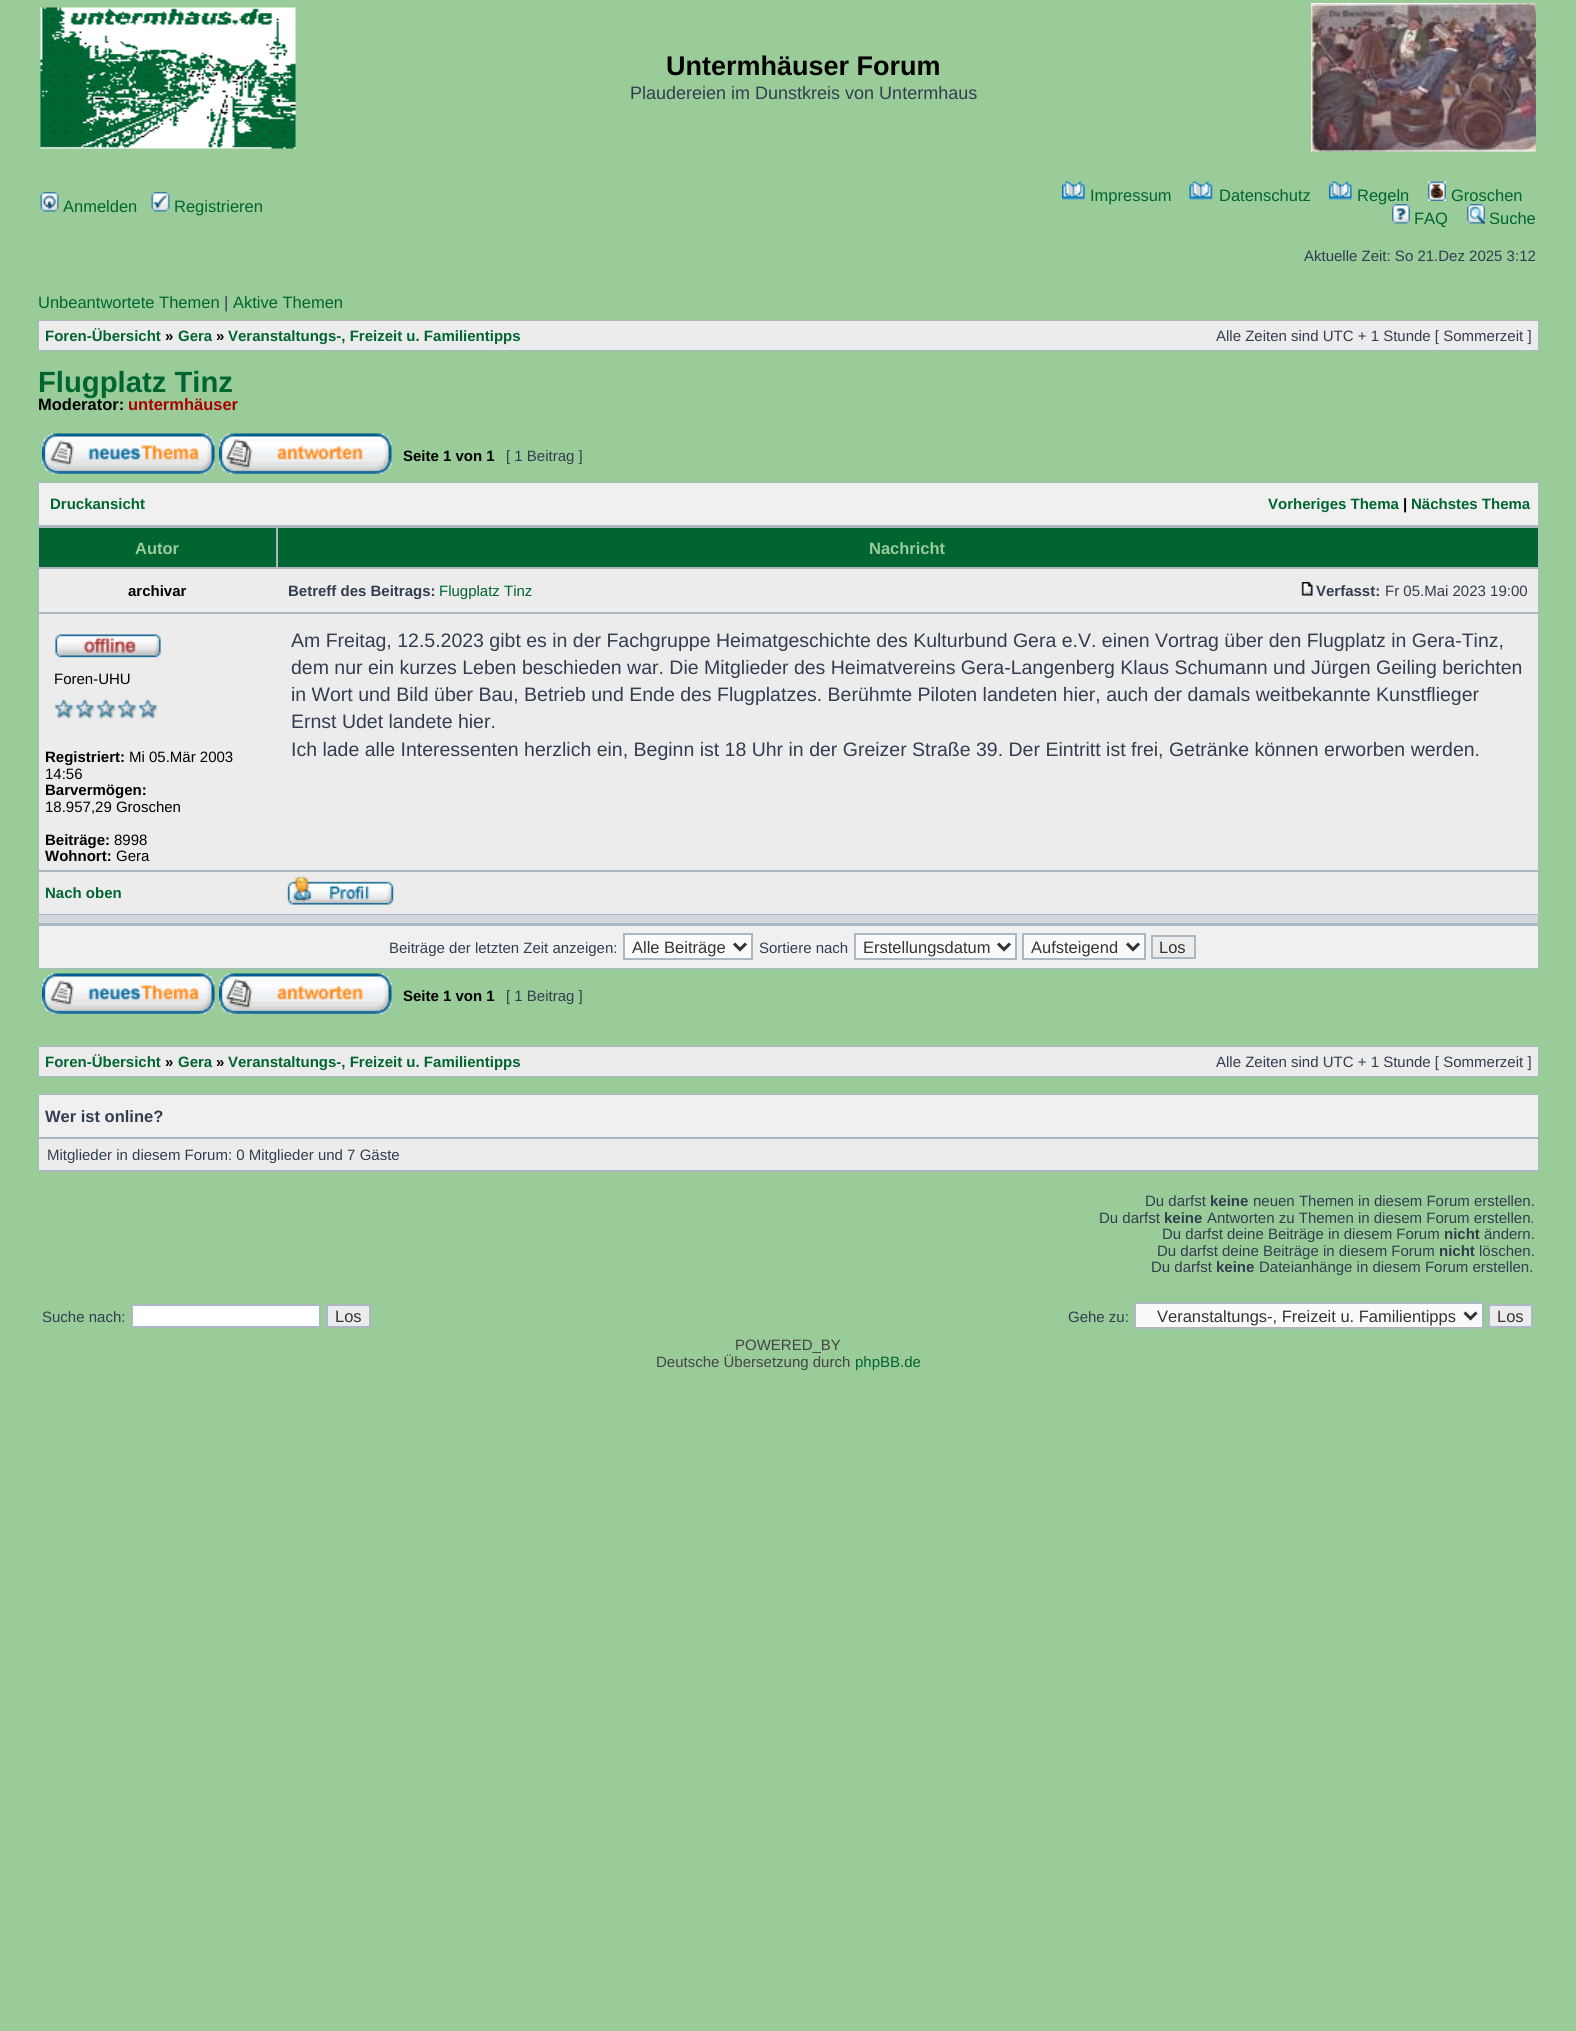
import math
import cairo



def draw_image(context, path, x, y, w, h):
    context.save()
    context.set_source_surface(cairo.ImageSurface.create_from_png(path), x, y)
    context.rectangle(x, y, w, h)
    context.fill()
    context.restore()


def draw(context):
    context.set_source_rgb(153 / 255, 204 / 255, 153 / 255)
    context.paint()
    draw_image(context, "images/1.png", 40, 7, 256, 142)
    draw_image(context, "images/2.png", 1311, 3, 225, 149)
    draw_image(context, "images/3.png", 40, 192, 19, 20)
    draw_image(context, "images/4.png", 151, 192, 19, 20)
    draw_image(context, "images/5.png", 1062, 181, 23, 19)
    draw_image(context, "images/6.png", 1189, 181, 24, 19)
    draw_image(context, "images/5.png", 1329, 181, 23, 19)
    draw_image(context, "images/7.png", 1428, 181, 18, 20)
    draw_image(context, "images/9.png", 1467, 204, 18, 20)
    context.set_source_rgb(169 / 255, 184 / 255, 194 / 255)
    context.rectangle(38, 320, 1501, 31)
    context.fill()
    context.set_source_rgb(236 / 255, 236 / 255, 236 / 255)
    context.rectangle(39, 321, 1499, 29)
    context.fill()
    draw_image(context, "images/10.png", 42, 433, 173, 41)
    draw_image(context, "images/11.png", 219, 433, 173, 41)
    context.set_source_rgb(169 / 255, 184 / 255, 194 / 255)
    context.rectangle(38, 482, 1501, 487)
    context.fill()
    context.set_source_rgb(240 / 255, 240 / 255, 240 / 255)
    context.rectangle(39, 483, 1499, 42)
    context.fill()
    context.set_source_rgb(0, 101 / 255, 49 / 255)
    context.rectangle(39, 528, 237, 39)
    context.fill()
    context.rectangle(278, 528, 1260, 39)
    context.fill()
    context.set_source_rgb(236 / 255, 236 / 255, 236 / 255)
    context.rectangle(39, 569, 1499, 43)
    context.fill()
    draw_image(context, "images/12.png", 1301, 582, 12, 14)
    context.rectangle(39, 614, 1499, 256)
    context.fill()
    draw_image(context, "images/13.png", 55, 634, 106, 24)
    draw_image(context, "images/14.png", 54, 699, 104, 20)
    context.rectangle(39, 872, 1499, 42)
    context.fill()
    draw_image(context, "images/15.png", 287, 876, 107, 29)
    context.set_source_rgb(209 / 255, 215 / 255, 220 / 255)
    context.rectangle(39, 915, 1499, 8)
    context.fill()
    context.set_source_rgb(240 / 255, 240 / 255, 240 / 255)
    context.rectangle(39, 926, 1499, 42)
    context.fill()
    context.set_source_rgb(250 / 255, 250 / 255, 250 / 255)
    context.rectangle(624, 934, 128, 25)
    context.fill_preserve()
    context.set_source_rgb(169 / 255, 184 / 255, 194 / 255)
    context.stroke()
    context.new_path()
    context.move_to(734, 943.5)
    context.line_to(740, 949.5)
    context.line_to(746, 943.5)
    context.set_source_rgb(51 / 255, 51 / 255, 51 / 255)
    context.set_line_width(3)
    context.stroke()
    context.set_source_rgb(250 / 255, 250 / 255, 250 / 255)
    context.rectangle(855, 934, 161, 25)
    context.fill_preserve()
    context.set_source_rgb(169 / 255, 184 / 255, 194 / 255)
    context.set_line_width(2)
    context.stroke()
    context.new_path()
    context.move_to(998, 943.5)
    context.line_to(1004, 949.5)
    context.line_to(1010, 943.5)
    context.set_source_rgb(51 / 255, 51 / 255, 51 / 255)
    context.set_line_width(3)
    context.stroke()
    context.set_source_rgb(250 / 255, 250 / 255, 250 / 255)
    context.rectangle(1023, 934, 122, 25)
    context.fill_preserve()
    context.set_source_rgb(169 / 255, 184 / 255, 194 / 255)
    context.set_line_width(2)
    context.stroke()
    context.new_path()
    context.move_to(1127, 943.5)
    context.line_to(1133, 949.5)
    context.line_to(1139, 943.5)
    context.set_source_rgb(51 / 255, 51 / 255, 51 / 255)
    context.set_line_width(3)
    context.stroke()
    context.set_source_rgb(236 / 255, 236 / 255, 236 / 255)
    context.rectangle(1152, 936, 43, 22)
    context.fill_preserve()
    context.set_source_rgb(169 / 255, 184 / 255, 194 / 255)
    context.set_line_width(2)
    context.stroke()
    draw_image(context, "images/10.png", 42, 973, 173, 41)
    draw_image(context, "images/11.png", 219, 973, 173, 41)
    context.rectangle(38, 1046, 1501, 31)
    context.fill()
    context.set_source_rgb(236 / 255, 236 / 255, 236 / 255)
    context.rectangle(39, 1047, 1499, 29)
    context.fill()
    context.set_source_rgb(169 / 255, 184 / 255, 194 / 255)
    context.rectangle(38, 1094, 1501, 78)
    context.fill()
    context.set_source_rgb(240 / 255, 240 / 255, 240 / 255)
    context.rectangle(39, 1095, 1499, 42)
    context.fill()
    context.set_source_rgb(236 / 255, 236 / 255, 236 / 255)
    context.rectangle(39, 1139, 1499, 31)
    context.fill()
    context.set_source_rgb(1, 1, 1)
    context.rectangle(132, 1305, 188, 22)
    context.fill_preserve()
    context.set_source_rgb(169 / 255, 184 / 255, 194 / 255)
    context.stroke()
    context.set_source_rgb(236 / 255, 236 / 255, 236 / 255)
    context.rectangle(327, 1305, 43, 22)
    context.fill_preserve()
    context.set_source_rgb(169 / 255, 184 / 255, 194 / 255)
    context.stroke()
    context.set_source_rgb(250 / 255, 250 / 255, 250 / 255)
    context.rectangle(1135, 1303, 348, 25)
    context.fill_preserve()
    context.set_source_rgb(169 / 255, 184 / 255, 194 / 255)
    context.stroke()
    context.new_path()
    context.move_to(1464.5, 1312.5)
    context.line_to(1470.5, 1318.5)
    context.line_to(1476.5, 1312.5)
    context.set_source_rgb(51 / 255, 51 / 255, 51 / 255)
    context.set_line_width(3)
    context.stroke()
    context.set_source_rgb(236 / 255, 236 / 255, 236 / 255)
    context.rectangle(1489, 1305, 43, 22)
    context.fill_preserve()
    context.set_source_rgb(169 / 255, 184 / 255, 194 / 255)
    context.set_line_width(2)
    context.stroke()
    context.select_font_face("Liberation Sans", cairo.FontSlant.NORMAL, cairo.FontWeight.BOLD)
    context.set_font_size(27)
    context.set_source_rgb(0, 0, 0)
    context.move_to(666, 75)
    context.show_text("Untermhäuser Forum")
    context.select_font_face("Liberation Sans")
    context.set_font_size(18)
    context.set_source_rgb(50 / 255, 61 / 255, 79 / 255)
    context.move_to(630, 99)
    context.show_text("Plaudereien im Dunstkreis von Untermhaus")
    context.set_font_size(16.5)
    context.set_source_rgb(0, 101 / 255, 49 / 255)
    context.move_to(63, 212)
    context.show_text("Anmelden")
    context.move_to(174, 212)
    context.show_text("Registrieren")
    context.move_to(1090, 201)
    context.show_text("Impressum")
    context.move_to(1219, 201)
    context.show_text("Datenschutz")
    context.move_to(1357, 201)
    context.show_text("Regeln")
    context.move_to(1451, 201)
    context.show_text("Groschen")
    draw_image(context, "images/8.png", 1392, 204, 18, 20)
    context.move_to(1414, 224)
    context.show_text("FAQ")
    context.move_to(1489, 224)
    context.show_text("Suche")
    context.set_font_size(15)
    context.set_source_rgb(50 / 255, 61 / 255, 79 / 255)
    context.move_to(1304, 261)
    context.show_text("Aktuelle Zeit: So 21.Dez 2025 3:12")
    context.set_font_size(16.5)
    context.set_source_rgb(0, 101 / 255, 49 / 255)
    context.move_to(38, 308)
    context.show_text("Unbeantwortete Themen")
    context.set_source_rgb(50 / 255, 61 / 255, 79 / 255)
    context.move_to(224, 308)
    context.show_text("|")
    context.set_source_rgb(0, 101 / 255, 49 / 255)
    context.move_to(233, 308)
    context.show_text("Aktive Themen")
    context.select_font_face("Liberation Sans", cairo.FontSlant.NORMAL, cairo.FontWeight.BOLD)
    context.set_font_size(15)
    context.move_to(45, 341)
    context.show_text("Foren-Übersicht")
    context.set_source_rgb(0, 0, 0)
    context.move_to(165, 341)
    context.show_text("»")
    context.set_source_rgb(0, 101 / 255, 49 / 255)
    context.move_to(178, 341)
    context.show_text("Gera")
    context.set_source_rgb(0, 0, 0)
    context.move_to(216, 341)
    context.show_text("»")
    context.set_source_rgb(0, 101 / 255, 49 / 255)
    context.move_to(228, 341)
    context.show_text("Veranstaltungs-, Freizeit u. Familientipps")
    context.select_font_face("Liberation Sans")
    context.set_source_rgb(50 / 255, 61 / 255, 79 / 255)
    context.move_to(1216, 341)
    context.show_text("Alle Zeiten sind UTC + 1 Stunde [ Sommerzeit ]")
    context.select_font_face("Liberation Sans", cairo.FontSlant.NORMAL, cairo.FontWeight.BOLD)
    context.set_font_size(29.25)
    context.set_source_rgb(0, 101 / 255, 49 / 255)
    context.move_to(38, 392)
    context.show_text("Flugplatz Tinz")
    context.set_font_size(16.5)
    context.set_source_rgb(0, 0, 0)
    context.move_to(38, 410)
    context.show_text("Moderator:")
    context.set_source_rgb(170 / 255, 0, 0)
    context.move_to(128, 410)
    context.show_text("untermhäuser")
    context.set_font_size(15)
    context.set_source_rgb(0, 0, 0)
    context.move_to(403, 461)
    context.show_text("Seite 1 von 1")
    context.select_font_face("Liberation Sans")
    context.set_source_rgb(50 / 255, 61 / 255, 79 / 255)
    context.move_to(506, 461)
    context.show_text("[ 1 Beitrag ]")
    context.select_font_face("Liberation Sans", cairo.FontSlant.NORMAL, cairo.FontWeight.BOLD)
    context.set_source_rgb(0, 101 / 255, 49 / 255)
    context.move_to(50, 509)
    context.show_text("Druckansicht")
    context.move_to(1268, 509)
    context.show_text("Vorheriges Thema")
    context.set_source_rgb(0, 0, 0)
    context.move_to(1403, 509)
    context.show_text("|")
    context.set_source_rgb(0, 101 / 255, 49 / 255)
    context.move_to(1411, 509)
    context.show_text("Nächstes Thema")
    context.set_font_size(16.5)
    context.set_source_rgb(153 / 255, 204 / 255, 153 / 255)
    context.move_to(135, 554)
    context.show_text("Autor")
    context.move_to(869, 554)
    context.show_text("Nachricht")
    context.set_font_size(15)
    context.set_source_rgb(0, 0, 0)
    context.move_to(128, 596)
    context.show_text("archivar")
    context.set_source_rgb(50 / 255, 61 / 255, 79 / 255)
    context.move_to(288, 596)
    context.show_text("Betreff des Beitrags:")
    context.select_font_face("Liberation Sans")
    context.set_source_rgb(0, 101 / 255, 49 / 255)
    context.move_to(439, 596)
    context.show_text("Flugplatz Tinz")
    context.select_font_face("Liberation Sans", cairo.FontSlant.NORMAL, cairo.FontWeight.BOLD)
    context.set_source_rgb(50 / 255, 61 / 255, 79 / 255)
    context.move_to(1316, 596)
    context.show_text("Verfasst:")
    context.select_font_face("Liberation Sans")
    context.move_to(1385, 596)
    context.show_text("Fr 05.Mai 2023 19:00")
    context.set_source_rgb(0, 0, 0)
    context.move_to(54, 684)
    context.show_text("Foren-UHU")
    context.select_font_face("Liberation Sans", cairo.FontSlant.NORMAL, cairo.FontWeight.BOLD)
    context.move_to(45, 762)
    context.show_text("Registriert:")
    context.select_font_face("Liberation Sans")
    context.move_to(129, 762)
    context.show_text("Mi 05.Mär 2003")
    context.move_to(45, 779)
    context.show_text("14:56")
    context.select_font_face("Liberation Sans", cairo.FontSlant.NORMAL, cairo.FontWeight.BOLD)
    context.move_to(45, 795)
    context.show_text("Barvermögen:")
    context.select_font_face("Liberation Sans")
    context.move_to(45, 812)
    context.show_text("18.957,29 Groschen")
    context.select_font_face("Liberation Sans", cairo.FontSlant.NORMAL, cairo.FontWeight.BOLD)
    context.move_to(45, 845)
    context.show_text("Beiträge:")
    context.select_font_face("Liberation Sans")
    context.move_to(114, 845)
    context.show_text("8998")
    context.select_font_face("Liberation Sans", cairo.FontSlant.NORMAL, cairo.FontWeight.BOLD)
    context.move_to(45, 861)
    context.show_text("Wohnort:")
    context.select_font_face("Liberation Sans")
    context.move_to(116, 861)
    context.show_text("Gera")
    context.set_font_size(19.5)
    context.set_source_rgb(50 / 255, 61 / 255, 79 / 255)
    context.move_to(291, 647)
    context.show_text("Am Freitag, 12.5.2023 gibt es in der Fachgruppe Heimatgeschichte des Kulturbund Gera e.V. einen Vortrag über den Flugplatz in Gera-Tinz,")
    context.move_to(291, 674)
    context.show_text("dem nur ein kurzes Leben beschieden war. Die Mitglieder des Heimatvereins Gera-Langenberg Klaus Schumann und Jürgen Geiling berichten")
    context.move_to(291, 701)
    context.show_text("in Wort und Bild über Bau, Betrieb und Ende des Flugplatzes. Berühmte Piloten landeten hier, auch der damals weitbekannte Kunstflieger")
    context.move_to(291, 728)
    context.show_text("Ernst Udet landete hier.")
    context.move_to(291, 756)
    context.show_text("Ich lade alle Interessenten herzlich ein, Beginn ist 18 Uhr in der Greizer Straße 39. Der Eintritt ist frei, Getränke können erworben werden.")
    context.select_font_face("Liberation Sans", cairo.FontSlant.NORMAL, cairo.FontWeight.BOLD)
    context.set_font_size(15)
    context.set_source_rgb(0, 101 / 255, 49 / 255)
    context.move_to(45, 898)
    context.show_text("Nach oben")
    context.select_font_face("Liberation Sans")
    context.set_source_rgb(50 / 255, 61 / 255, 79 / 255)
    context.move_to(389, 953)
    context.show_text("Beiträge der letzten Zeit anzeigen:")
    context.set_font_size(16.5)
    context.set_source_rgb(51 / 255, 51 / 255, 51 / 255)
    context.move_to(632, 953)
    context.show_text("Alle Beiträge")
    context.set_font_size(15)
    context.set_source_rgb(50 / 255, 61 / 255, 79 / 255)
    context.move_to(759, 953)
    context.show_text("Sortiere nach")
    context.set_font_size(16.5)
    context.set_source_rgb(51 / 255, 51 / 255, 51 / 255)
    context.move_to(863, 953)
    context.show_text("Erstellungsdatum")
    context.move_to(1031, 953)
    context.show_text("Aufsteigend")
    context.move_to(1159, 953)
    context.show_text("Los")
    context.select_font_face("Liberation Sans", cairo.FontSlant.NORMAL, cairo.FontWeight.BOLD)
    context.set_font_size(15)
    context.set_source_rgb(0, 0, 0)
    context.move_to(403, 1001)
    context.show_text("Seite 1 von 1")
    context.select_font_face("Liberation Sans")
    context.set_source_rgb(50 / 255, 61 / 255, 79 / 255)
    context.move_to(506, 1001)
    context.show_text("[ 1 Beitrag ]")
    context.select_font_face("Liberation Sans", cairo.FontSlant.NORMAL, cairo.FontWeight.BOLD)
    context.set_source_rgb(0, 101 / 255, 49 / 255)
    context.move_to(45, 1067)
    context.show_text("Foren-Übersicht")
    context.set_source_rgb(0, 0, 0)
    context.move_to(165, 1067)
    context.show_text("»")
    context.set_source_rgb(0, 101 / 255, 49 / 255)
    context.move_to(178, 1067)
    context.show_text("Gera")
    context.set_source_rgb(0, 0, 0)
    context.move_to(216, 1067)
    context.show_text("»")
    context.set_source_rgb(0, 101 / 255, 49 / 255)
    context.move_to(228, 1067)
    context.show_text("Veranstaltungs-, Freizeit u. Familientipps")
    context.select_font_face("Liberation Sans")
    context.set_source_rgb(50 / 255, 61 / 255, 79 / 255)
    context.move_to(1216, 1067)
    context.show_text("Alle Zeiten sind UTC + 1 Stunde [ Sommerzeit ]")
    context.select_font_face("Liberation Sans", cairo.FontSlant.NORMAL, cairo.FontWeight.BOLD)
    context.set_font_size(16.5)
    context.move_to(45, 1122)
    context.show_text("Wer ist online?")
    context.select_font_face("Liberation Sans")
    context.set_font_size(15)
    context.move_to(47, 1160)
    context.show_text("Mitglieder in diesem Forum: 0 Mitglieder und 7 Gäste")
    context.move_to(1145, 1206)
    context.show_text("Du darfst")
    context.select_font_face("Liberation Sans", cairo.FontSlant.NORMAL, cairo.FontWeight.BOLD)
    context.move_to(1210, 1206)
    context.show_text("keine")
    context.select_font_face("Liberation Sans")
    context.move_to(1253, 1206)
    context.show_text("neuen Themen in diesem Forum erstellen.")
    context.move_to(1099, 1223)
    context.show_text("Du darfst")
    context.select_font_face("Liberation Sans", cairo.FontSlant.NORMAL, cairo.FontWeight.BOLD)
    context.move_to(1164, 1223)
    context.show_text("keine")
    context.select_font_face("Liberation Sans")
    context.move_to(1207, 1223)
    context.show_text("Antworten zu Themen in diesem Forum erstellen.")
    context.move_to(1162, 1239)
    context.show_text("Du darfst deine Beiträge in diesem Forum")
    context.select_font_face("Liberation Sans", cairo.FontSlant.NORMAL, cairo.FontWeight.BOLD)
    context.move_to(1444, 1239)
    context.show_text("nicht")
    context.select_font_face("Liberation Sans")
    context.move_to(1484, 1239)
    context.show_text("ändern.")
    context.move_to(1157, 1256)
    context.show_text("Du darfst deine Beiträge in diesem Forum")
    context.select_font_face("Liberation Sans", cairo.FontSlant.NORMAL, cairo.FontWeight.BOLD)
    context.move_to(1439, 1256)
    context.show_text("nicht")
    context.select_font_face("Liberation Sans")
    context.move_to(1479, 1256)
    context.show_text("löschen.")
    context.move_to(1151, 1272)
    context.show_text("Du darfst")
    context.select_font_face("Liberation Sans", cairo.FontSlant.NORMAL, cairo.FontWeight.BOLD)
    context.move_to(1216, 1272)
    context.show_text("keine")
    context.select_font_face("Liberation Sans")
    context.move_to(1259, 1272)
    context.show_text("Dateianhänge in diesem Forum erstellen.")
    context.move_to(42, 1322)
    context.show_text("Suche nach:")
    context.set_font_size(16.5)
    context.set_source_rgb(51 / 255, 51 / 255, 51 / 255)
    context.move_to(335, 1322)
    context.show_text("Los")
    context.set_font_size(15)
    context.set_source_rgb(50 / 255, 61 / 255, 79 / 255)
    context.move_to(1068, 1322)
    context.show_text("Gehe zu:")
    context.set_font_size(16.5)
    context.set_source_rgb(51 / 255, 51 / 255, 51 / 255)
    context.move_to(1157, 1322)
    context.show_text("Veranstaltungs-, Freizeit u. Familientipps")
    context.move_to(1497, 1322)
    context.show_text("Los")
    context.set_font_size(15)
    context.set_source_rgb(68 / 255, 68 / 255, 68 / 255)
    context.move_to(735, 1350)
    context.show_text("POWERED_BY")
    context.move_to(656, 1367)
    context.show_text("Deutsche Übersetzung durch")
    context.set_source_rgb(0, 101 / 255, 49 / 255)
    context.move_to(855, 1367)
    context.show_text("phpBB.de")


surface = cairo.ImageSurface(cairo.Format.RGB24, 1576, 2031)
context = cairo.Context(surface)
options = cairo.FontOptions()
options.set_hint_metrics(cairo.HintMetrics.OFF)
options.set_hint_style(cairo.HintStyle.NONE)
context.set_font_options(options)
context.set_miter_limit(4)
draw(context)
surface.write_to_png("out.png")
